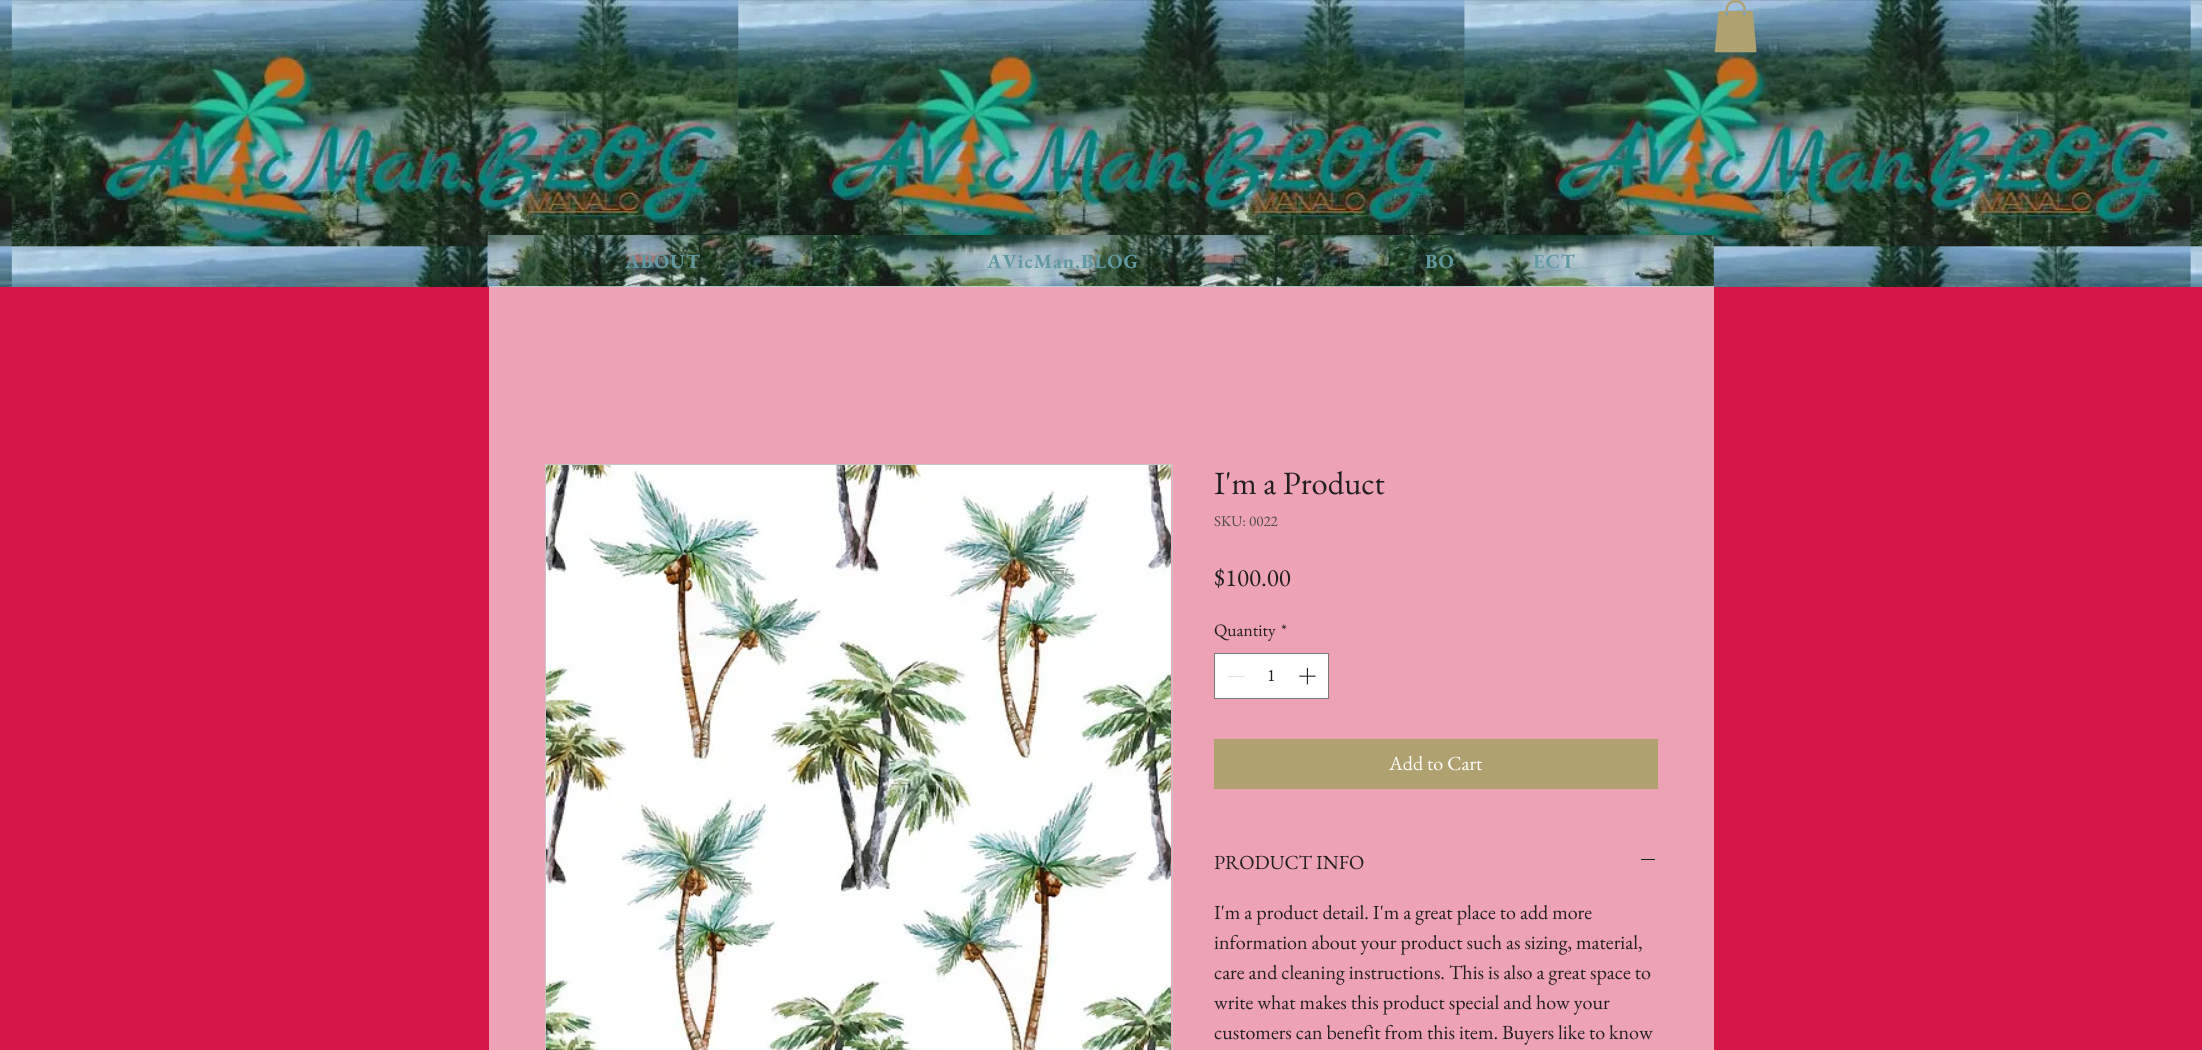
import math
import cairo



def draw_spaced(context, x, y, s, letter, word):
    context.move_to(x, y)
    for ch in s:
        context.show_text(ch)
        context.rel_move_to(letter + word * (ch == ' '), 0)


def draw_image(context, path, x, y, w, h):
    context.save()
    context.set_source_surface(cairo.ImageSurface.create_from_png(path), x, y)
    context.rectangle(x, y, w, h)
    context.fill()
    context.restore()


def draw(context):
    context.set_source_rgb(212 / 255, 23 / 255, 70 / 255)
    context.paint()
    draw_image(context, "images/1.png", 0, 0, 2202, 287)
    draw_image(context, "images/2.png", 1714, 0, 43, 53)
    draw_image(context, "images/3.png", 487, 235, 1227, 52)
    context.set_source_rgba(1, 1, 1, 0.6)
    context.rectangle(489, 286, 1225, 764)
    context.fill()
    context.rectangle(545.5, 464.5, 627, 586)
    context.set_source_rgb(199 / 255, 197 / 255, 197 / 255)
    context.set_line_width(1)
    context.stroke()
    draw_image(context, "images/4.png", 546, 465, 625, 585)
    context.set_source_rgb(1, 1, 1)
    context.rectangle(1214.5, 653.5, 114, 45)
    context.fill_preserve()
    context.set_source_rgb(122 / 255, 121 / 255, 121 / 255)
    context.stroke()
    context.set_source_rgb(227 / 255, 227 / 255, 227 / 255)
    context.rectangle(1228, 676, 17, 1)
    context.fill()
    draw_image(context, "images/5.png", 1299, 667, 17, 18)
    context.set_source_rgb(176 / 255, 161 / 255, 113 / 255)
    context.rectangle(1214, 739, 444, 50)
    context.fill()
    context.set_source_rgb(33 / 255, 32 / 255, 32 / 255)
    context.rectangle(1641, 859, 14, 1)
    context.fill()
    context.select_font_face("EB Garamond", cairo.FontSlant.NORMAL, cairo.FontWeight.BOLD)
    context.set_font_size(20)
    context.set_source_rgb(97 / 255, 153 / 255, 163 / 255)
    draw_spaced(context, 625, 268, "ABOUT", 1, 0)
    draw_spaced(context, 987, 268, "AVicMan.BLOG", 1, 0)
    draw_spaced(context, 1425, 268, "BO", 1, 0)
    draw_spaced(context, 1533, 268, "ECT", 1, 0)
    context.select_font_face("EB Garamond")
    context.set_font_size(32.5)
    context.set_source_rgb(33 / 255, 32 / 255, 32 / 255)
    context.move_to(1214, 494)
    context.show_text("I'm a Product")
    context.set_font_size(15)
    context.set_source_rgb(77 / 255, 75 / 255, 75 / 255)
    context.move_to(1214, 526)
    context.show_text("SKU: 0022")
    context.set_font_size(25)
    context.set_source_rgb(33 / 255, 32 / 255, 32 / 255)
    context.move_to(1214, 586)
    context.show_text("$100.00")
    context.set_font_size(17.5)
    context.move_to(1214, 636)
    context.show_text("Quantity")
    context.move_to(1281, 636)
    context.show_text("*")
    context.move_to(1267, 681)
    context.show_text("1")
    context.set_font_size(20)
    context.set_source_rgb(1, 1, 1)
    context.move_to(1389, 770)
    context.show_text("Add to Cart")
    context.set_source_rgb(33 / 255, 32 / 255, 32 / 255)
    context.move_to(1214, 869)
    context.show_text("PRODUCT INFO")
    context.move_to(1214, 919)
    context.show_text("I'm a product detail. I'm a great place to add more")
    context.move_to(1214, 949)
    context.show_text("information about your product such as sizing, material,")
    context.move_to(1214, 979)
    context.show_text("care and cleaning instructions. This is also a great space to")
    context.move_to(1214, 1009)
    context.show_text("write what makes this product special and how your")
    context.move_to(1214, 1039)
    context.show_text("customers can benefit from this item. Buyers like to know")


surface = cairo.ImageSurface(cairo.Format.RGB24, 2202, 1050)
context = cairo.Context(surface)
options = cairo.FontOptions()
options.set_hint_metrics(cairo.HintMetrics.OFF)
options.set_hint_style(cairo.HintStyle.NONE)
context.set_font_options(options)
context.set_miter_limit(4)
draw(context)
surface.write_to_png("out.png")
